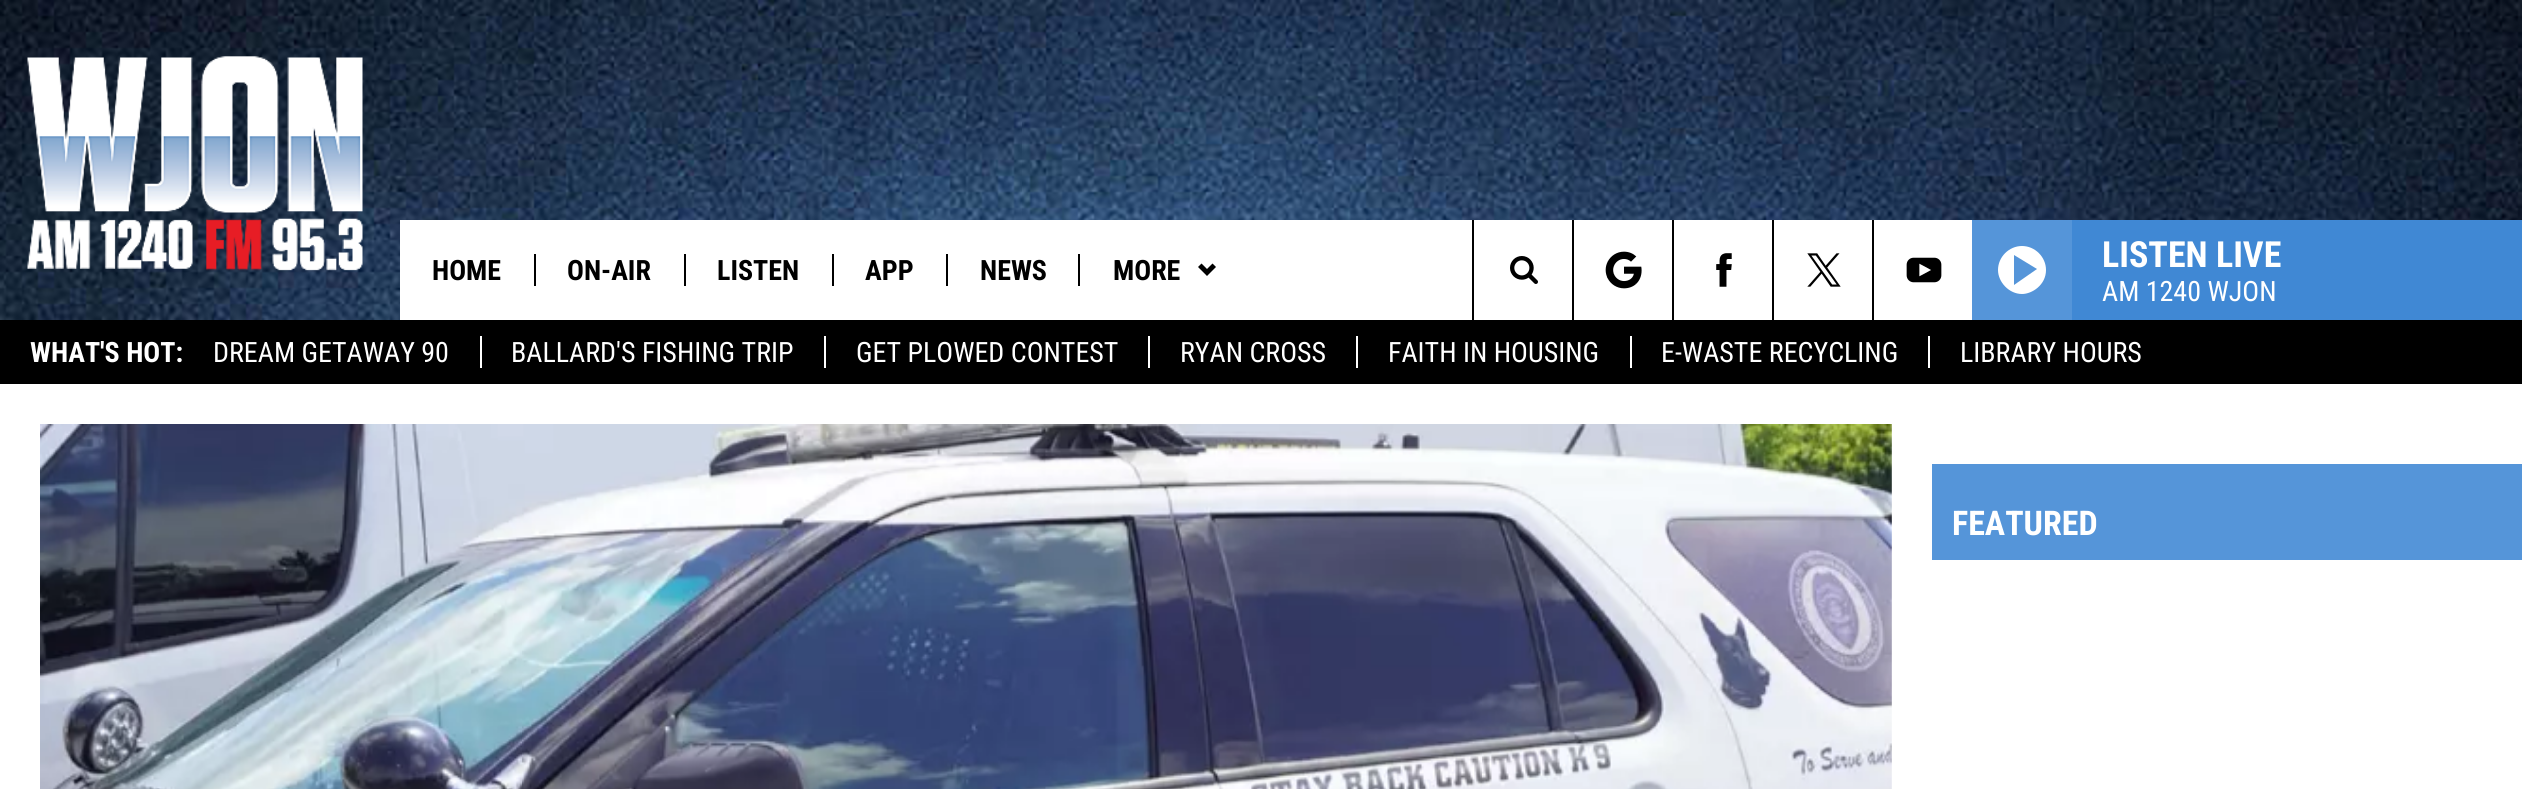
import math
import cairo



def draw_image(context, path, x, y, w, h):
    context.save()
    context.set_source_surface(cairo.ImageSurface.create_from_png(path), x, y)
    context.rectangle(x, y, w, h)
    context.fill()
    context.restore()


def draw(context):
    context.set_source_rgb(1, 1, 1)
    context.paint()
    draw_image(context, "images/1.png", 0, 0, 2522, 320)
    draw_image(context, "images/2.png", 27, 56, 336, 215)
    context.set_source_rgb(1, 1, 1)
    context.rectangle(400, 220, 1572, 100)
    context.fill()
    context.set_source_rgb(0, 0, 0)
    context.rectangle(534, 254, 2, 32)
    context.fill()
    context.rectangle(684, 254, 2, 32)
    context.fill()
    context.rectangle(832, 254, 2, 32)
    context.fill()
    context.rectangle(946, 254, 2, 32)
    context.fill()
    context.rectangle(1078, 254, 2, 32)
    context.fill()
    context.new_path()
    context.move_to(1207, 276)
    context.line_to(1198, 267)
    context.line_to(1201.5, 263.5)
    context.line_to(1207, 269)
    context.line_to(1212.5, 263.5)
    context.line_to(1216, 267)
    context.close_path()
    context.fill()
    context.rectangle(1472, 220, 2, 100)
    context.fill()
    draw_image(context, "images/3.png", 1510, 256, 28, 28)
    context.rectangle(1572, 220, 2, 100)
    context.fill()
    draw_image(context, "images/4.png", 1605, 251, 37, 38)
    context.rectangle(1672, 220, 2, 100)
    context.fill()
    draw_image(context, "images/5.png", 1716, 253, 16, 34)
    context.rectangle(1772, 220, 2, 100)
    context.fill()
    draw_image(context, "images/6.png", 1807, 253, 34, 34)
    context.rectangle(1872, 220, 2, 100)
    context.fill()
    draw_image(context, "images/7.png", 1906, 257, 36, 26)
    context.set_source_rgb(85 / 255, 149 / 255, 217 / 255)
    context.rectangle(1972, 220, 100, 100)
    context.fill()
    context.set_source_rgb(1, 1, 1)
    context.set_fill_rule(cairo.FillRule.EVEN_ODD)
    context.new_path()
    context.move_to(2022, 246)
    context.curve_to(2009, 246, 1998, 257, 1998, 270)
    context.curve_to(1998, 282, 2009, 294, 2022, 294)
    context.curve_to(2032, 294, 2046, 285, 2046, 270)
    context.curve_to(2046, 257, 2035, 246, 2022, 246)
    context.close_path()
    context.move_to(2014, 285)
    context.line_to(2014, 255)
    context.line_to(2037, 269)
    context.close_path()
    context.fill()
    context.set_source_rgb(64 / 255, 136 / 255, 212 / 255)
    context.rectangle(2072, 220, 450, 100)
    context.fill()
    context.set_source_rgb(0, 0, 0)
    context.rectangle(0, 320, 2522, 64)
    context.fill()
    context.set_source_rgb(1, 1, 1)
    context.rectangle(480, 336, 2, 32)
    context.fill()
    context.rectangle(824, 336, 2, 32)
    context.fill()
    context.rectangle(1148, 336, 2, 32)
    context.fill()
    context.rectangle(1356, 336, 2, 32)
    context.fill()
    context.rectangle(1630, 336, 2, 32)
    context.fill()
    context.rectangle(1928, 336, 2, 32)
    context.fill()
    draw_image(context, "images/8.png", 40, 424, 1852, 365)
    context.set_source_rgb(85 / 255, 149 / 255, 217 / 255)
    context.rectangle(1932, 464, 590, 96)
    context.fill()
    context.select_font_face("Roboto Condensed", cairo.FontSlant.NORMAL, cairo.FontWeight.BOLD)
    context.set_font_size(28)
    context.set_source_rgb(0, 0, 0)
    context.move_to(432, 280)
    context.show_text("HOME")
    context.move_to(567, 280)
    context.show_text("ON-AIR")
    context.move_to(717, 280)
    context.show_text("LISTEN")
    context.move_to(865, 280)
    context.show_text("APP")
    context.move_to(980, 280)
    context.show_text("NEWS")
    context.move_to(1113, 280)
    context.show_text("MORE")
    context.set_font_size(36)
    context.set_source_rgb(1, 1, 1)
    context.move_to(2102, 267)
    context.show_text("LISTEN LIVE")
    context.select_font_face("Roboto Condensed")
    context.set_font_size(28)
    context.move_to(2102, 301)
    context.show_text("AM 1240 WJON")
    context.select_font_face("Roboto Condensed", cairo.FontSlant.NORMAL, cairo.FontWeight.BOLD)
    context.move_to(30, 362)
    context.show_text("WHAT'S HOT:")
    context.select_font_face("Roboto Condensed")
    context.move_to(213, 362)
    context.show_text("DREAM GETAWAY 90")
    context.move_to(511, 362)
    context.show_text("BALLARD'S FISHING TRIP")
    context.move_to(856, 362)
    context.show_text("GET PLOWED CONTEST")
    context.move_to(1180, 362)
    context.show_text("RYAN CROSS")
    context.move_to(1388, 362)
    context.show_text("FAITH IN HOUSING")
    context.move_to(1661, 362)
    context.show_text("E-WASTE RECYCLING")
    context.move_to(1960, 362)
    context.show_text("LIBRARY HOURS")
    context.select_font_face("Roboto Condensed", cairo.FontSlant.NORMAL, cairo.FontWeight.BOLD)
    context.set_font_size(34)
    context.move_to(1952, 535)
    context.show_text("FEATURED")


surface = cairo.ImageSurface(cairo.Format.RGB24, 2522, 789)
context = cairo.Context(surface)
options = cairo.FontOptions()
options.set_hint_metrics(cairo.HintMetrics.OFF)
options.set_hint_style(cairo.HintStyle.NONE)
context.set_font_options(options)
context.set_miter_limit(4)
draw(context)
surface.write_to_png("out.png")
